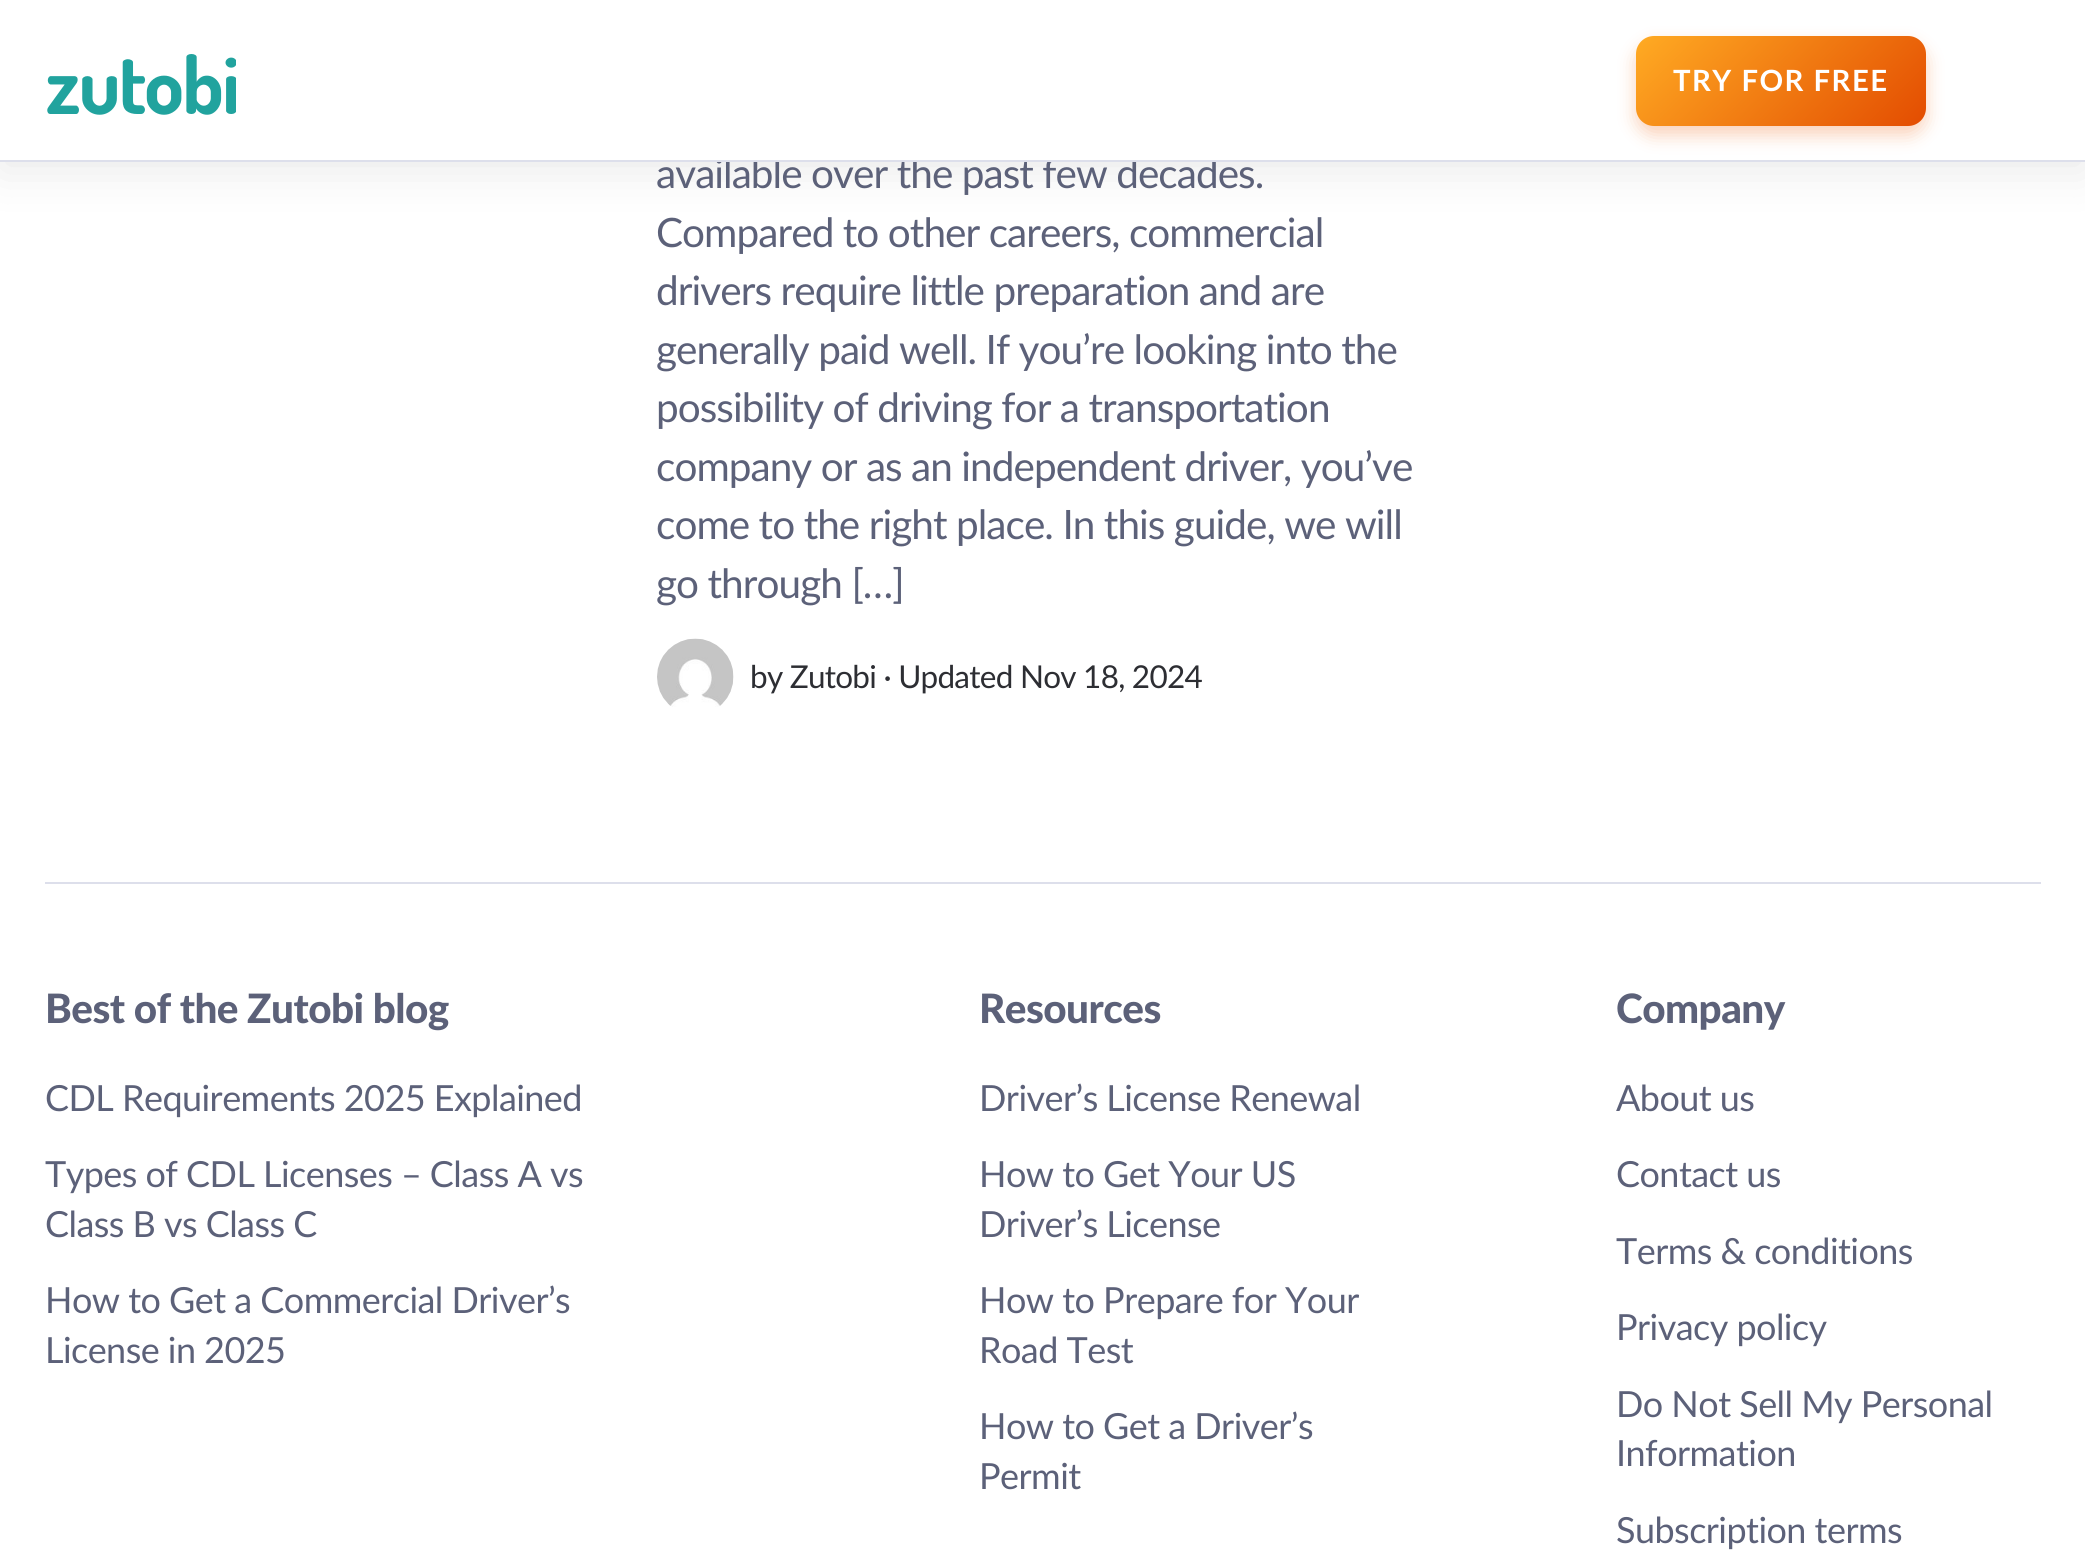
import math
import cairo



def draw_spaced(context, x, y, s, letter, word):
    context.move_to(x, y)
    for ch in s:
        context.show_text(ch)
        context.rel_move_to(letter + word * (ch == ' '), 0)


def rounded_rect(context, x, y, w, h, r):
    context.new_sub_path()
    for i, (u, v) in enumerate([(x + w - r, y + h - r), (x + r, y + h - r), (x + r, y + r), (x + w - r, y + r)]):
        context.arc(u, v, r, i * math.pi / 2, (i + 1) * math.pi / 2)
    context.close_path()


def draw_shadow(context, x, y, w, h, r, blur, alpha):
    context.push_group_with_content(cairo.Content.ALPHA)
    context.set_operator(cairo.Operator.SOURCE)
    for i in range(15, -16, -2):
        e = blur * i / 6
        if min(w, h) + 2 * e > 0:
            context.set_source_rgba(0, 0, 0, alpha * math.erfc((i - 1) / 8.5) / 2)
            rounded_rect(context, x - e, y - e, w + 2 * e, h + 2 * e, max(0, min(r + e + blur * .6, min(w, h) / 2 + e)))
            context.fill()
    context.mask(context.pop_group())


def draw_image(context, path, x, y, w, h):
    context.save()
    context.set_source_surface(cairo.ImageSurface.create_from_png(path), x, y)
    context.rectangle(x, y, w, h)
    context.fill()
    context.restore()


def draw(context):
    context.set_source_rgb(1, 1, 1)
    context.paint()
    context.set_source_rgb(34 / 255, 34 / 255, 34 / 255)
    draw_shadow(context, 0, 9, 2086, 162, 0, 22.5, 0.1)
    draw_image(context, "images/2.png", 657, 638, 77, 69)
    context.set_source_rgb(221 / 255, 223 / 255, 235 / 255)
    context.rectangle(45, 882, 1996, 2)
    context.fill()
    context.select_font_face("Lato")
    context.set_font_size(40.5)
    context.set_source_rgb(92 / 255, 97 / 255, 121 / 255)
    draw_spaced(context, 656, 188, "available over the past few decades.", -0.95, 0)
    context.set_source_rgb(221 / 255, 223 / 255, 235 / 255)
    context.rectangle(0, 160, 2085, 2)
    context.fill()
    context.set_source_rgb(1, 1, 1)
    context.rectangle(0, 0, 2085, 160)
    context.fill()
    context.set_source_rgb(240 / 255, 109 / 255, 31 / 255)
    draw_shadow(context, 1636, 45, 290, 90, 18, 9, 0.31)
    gradient = cairo.LinearGradient(1876, 176, 1686, -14)
    gradient.add_color_stop_rgba(0, 227 / 255, 76 / 255, 1 / 255, 1)
    gradient.add_color_stop_rgba(1, 1, 171 / 255, 35 / 255, 1)
    context.set_source(gradient)
    rounded_rect(context, 1636, 36, 290, 90, 18)
    context.fill()
    context.select_font_face("Lato", cairo.FontSlant.NORMAL, cairo.FontWeight.BOLD)
    context.set_font_size(29.25)
    context.set_source_rgb(1, 1, 1)
    draw_spaced(context, 1673, 91, "TRY FOR FREE", 1.5, 0)
    draw_image(context, "images/1.png", 47, 54, 189, 61)
    context.select_font_face("Lato")
    context.set_font_size(40.5)
    context.set_source_rgb(92 / 255, 97 / 255, 121 / 255)
    draw_spaced(context, 656, 247, "Compared to other careers, commercial", -0.95, 0)
    draw_spaced(context, 656, 305, "drivers require little preparation and are", -0.95, 0)
    draw_spaced(context, 656, 364, "generally paid well. If you’re looking into the", -0.95, 0)
    draw_spaced(context, 656, 422, "possibility of driving for a transportation", -0.95, 0)
    draw_spaced(context, 656, 481, "company or as an independent driver, you’ve", -0.95, 0)
    draw_spaced(context, 656, 539, "come to the right place. In this guide, we will", -0.95, 0)
    draw_spaced(context, 656, 598, "go through […]", -0.95, 0)
    context.set_font_size(31.5)
    context.set_source_rgb(45 / 255, 46 / 255, 51 / 255)
    draw_spaced(context, 750, 688, "by Zutobi · Updated Nov 18, 2024", -0.75, 0)
    context.select_font_face("Lato Black")
    context.set_font_size(40.5)
    context.set_source_rgb(92 / 255, 97 / 255, 121 / 255)
    draw_spaced(context, 45, 1023, "Best of the Zutobi blog", -0.55, 0)
    context.select_font_face("Lato")
    context.set_font_size(36)
    draw_spaced(context, 45, 1111, "CDL Requirements 2025 Explained", -0.55, 0)
    draw_spaced(context, 45, 1187, "Types of CDL Licenses – Class A vs", -0.55, 0)
    draw_spaced(context, 45, 1237, "Class B vs Class C", -0.55, 0)
    draw_spaced(context, 45, 1313, "How to Get a Commercial Driver’s", -0.55, 0)
    draw_spaced(context, 45, 1363, "License in 2025", -0.55, 0)
    context.select_font_face("Lato Black")
    context.set_font_size(40.5)
    draw_spaced(context, 979, 1023, "Resources", -0.55, 0)
    context.select_font_face("Lato")
    context.set_font_size(36)
    draw_spaced(context, 979, 1111, "Driver’s License Renewal", -0.55, 0)
    draw_spaced(context, 979, 1187, "How to Get Your US", -0.55, 0)
    draw_spaced(context, 979, 1237, "Driver’s License", -0.55, 0)
    draw_spaced(context, 979, 1313, "How to Prepare for Your", -0.55, 0)
    draw_spaced(context, 979, 1363, "Road Test", -0.55, 0)
    draw_spaced(context, 979, 1439, "How to Get a Driver’s", -0.55, 0)
    draw_spaced(context, 979, 1489, "Permit", -0.55, 0)
    context.select_font_face("Lato Black")
    context.set_font_size(40.5)
    draw_spaced(context, 1616, 1023, "Company", -0.55, 0)
    context.select_font_face("Lato")
    context.set_font_size(36)
    draw_spaced(context, 1616, 1111, "About us", -0.55, 0)
    draw_spaced(context, 1616, 1187, "Contact us", -0.55, 0)
    draw_spaced(context, 1616, 1264, "Terms & conditions", -0.55, 0)
    draw_spaced(context, 1616, 1340, "Privacy policy", -0.55, 0)
    draw_spaced(context, 1616, 1417, "Do Not Sell My Personal", -0.55, 0)
    draw_spaced(context, 1616, 1466, "Information", -0.55, 0)
    draw_spaced(context, 1616, 1543, "Subscription terms", -0.55, 0)


surface = cairo.ImageSurface(cairo.Format.RGB24, 2085, 1551)
context = cairo.Context(surface)
options = cairo.FontOptions()
options.set_hint_metrics(cairo.HintMetrics.OFF)
options.set_hint_style(cairo.HintStyle.NONE)
context.set_font_options(options)
context.set_miter_limit(4)
draw(context)
surface.write_to_png("out.png")
